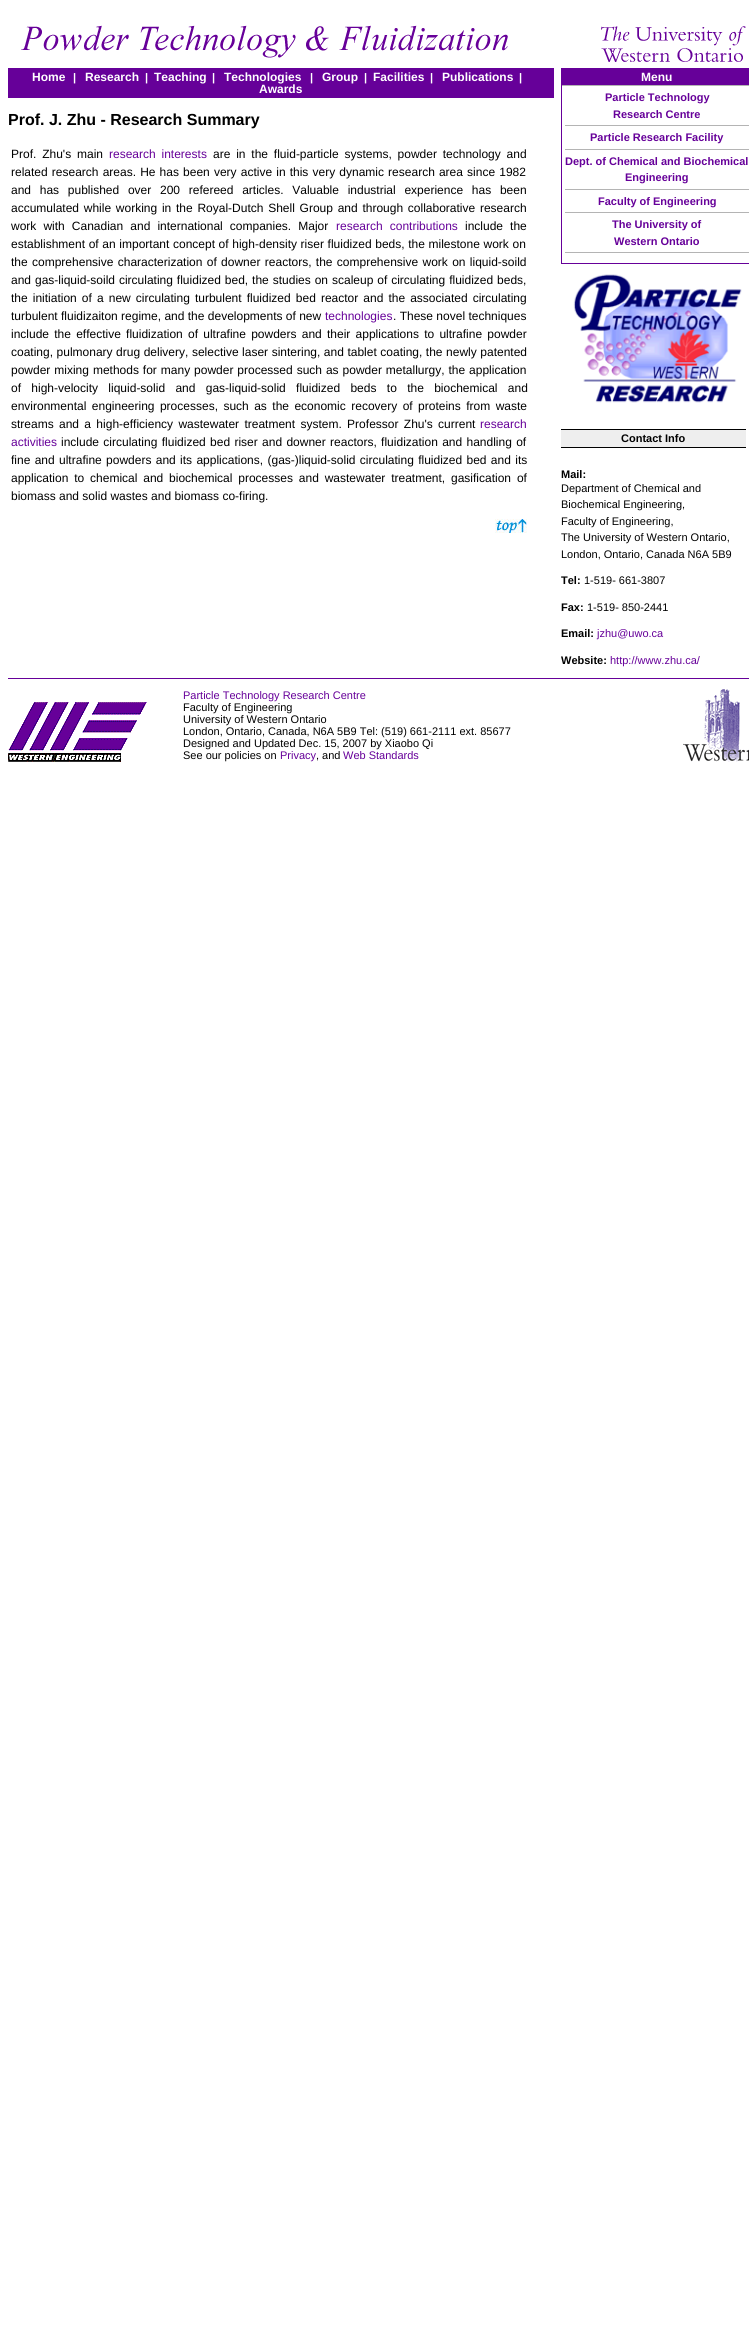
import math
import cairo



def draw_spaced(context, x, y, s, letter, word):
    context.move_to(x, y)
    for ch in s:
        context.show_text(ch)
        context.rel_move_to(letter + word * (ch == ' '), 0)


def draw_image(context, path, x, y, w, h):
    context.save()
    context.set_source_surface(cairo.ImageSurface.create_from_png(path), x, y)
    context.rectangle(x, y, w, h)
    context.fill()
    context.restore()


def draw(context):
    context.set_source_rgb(1, 1, 1)
    context.paint()
    draw_image(context, "images/1.png", 21, 25, 487, 33)
    draw_image(context, "images/2.png", 601, 26, 145, 36)
    context.set_source_rgb(102 / 255, 0, 153 / 255)
    context.rectangle(8, 68, 546, 30)
    context.fill()
    draw_image(context, "images/3.png", 495, 519, 32, 14)
    context.rectangle(561.5, 68.5, 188, 195)
    context.set_line_width(1)
    context.stroke()
    context.rectangle(562, 69, 187, 16)
    context.fill()
    context.set_source_rgb(180 / 255, 180 / 255, 180 / 255)
    context.rectangle(562, 85, 187, 1)
    context.fill()
    context.rectangle(565, 125, 184, 1)
    context.fill()
    context.rectangle(565, 149, 184, 1)
    context.fill()
    context.rectangle(565, 189, 184, 1)
    context.fill()
    context.rectangle(565, 212, 184, 1)
    context.fill()
    context.rectangle(565, 252, 184, 1)
    context.fill()
    draw_image(context, "images/4.png", 573, 274, 169, 129)
    context.set_source_rgb(238 / 255, 238 / 255, 238 / 255)
    context.rectangle(561, 430, 185, 17)
    context.fill()
    context.set_source_rgb(0, 0, 0)
    context.rectangle(561, 429, 185, 1)
    context.fill()
    context.rectangle(561, 447, 185, 1)
    context.fill()
    context.set_source_rgb(102 / 255, 0, 153 / 255)
    context.rectangle(8, 678, 741, 1)
    context.fill()
    draw_image(context, "images/5.png", 683, 689, 66, 73)
    draw_image(context, "images/6.png", 8, 702, 139, 60)
    context.select_font_face("Liberation Sans", cairo.FontSlant.NORMAL, cairo.FontWeight.BOLD)
    context.set_font_size(12)
    context.set_source_rgb(1, 1, 1)
    context.move_to(32, 81)
    context.show_text("Home")
    context.set_font_size(11)
    context.move_to(73, 81)
    context.show_text("|")
    context.set_font_size(12)
    context.move_to(85, 81)
    context.show_text("Research")
    context.set_font_size(11)
    context.move_to(145, 81)
    context.show_text("|")
    context.set_font_size(12)
    context.move_to(154, 81)
    context.show_text("Teaching")
    context.set_font_size(11)
    context.move_to(212, 81)
    context.show_text("|")
    context.set_font_size(12)
    context.move_to(224, 81)
    context.show_text("Technologies")
    context.set_font_size(11)
    context.move_to(310, 81)
    context.show_text("|")
    context.set_font_size(12)
    context.move_to(322, 81)
    context.show_text("Group")
    context.set_font_size(11)
    context.move_to(364, 81)
    context.show_text("|")
    context.set_font_size(12)
    context.move_to(373, 81)
    context.show_text("Facilities")
    context.set_font_size(11)
    context.move_to(430, 81)
    context.show_text("|")
    context.set_font_size(12)
    context.move_to(442, 81)
    context.show_text("Publications")
    context.set_font_size(11)
    context.move_to(519, 81)
    context.show_text("|")
    context.set_font_size(12)
    context.move_to(259, 93)
    context.show_text("Awards")
    context.set_font_size(16)
    context.set_source_rgb(0, 0, 0)
    context.move_to(8, 125)
    context.show_text("Prof. J. Zhu - Research Summary")
    context.select_font_face("Liberation Sans")
    context.set_font_size(12)
    draw_spaced(context, 11, 158, "Prof. Zhu's main", 0, 2.5)
    context.set_source_rgb(102 / 255, 0, 153 / 255)
    draw_spaced(context, 109, 158, "research interests", 0, 2.5)
    context.set_source_rgb(0, 0, 0)
    draw_spaced(context, 213, 158, "are in the fluid-particle systems, powder technology and", 0, 2.5)
    draw_spaced(context, 11, 176, "related research areas. He has been very active in this very dynamic research area since 1982", 0, 0.8)
    draw_spaced(context, 11, 194, "and has published over 200 refereed articles. Valuable industrial experience has been", 0, 5.4)
    draw_spaced(context, 11, 212, "accumulated while working in the Royal-Dutch Shell Group and through collaborative research", 0, 1.4)
    draw_spaced(context, 11, 230, "work with Canadian and international companies. Major", 0, 3.75)
    context.set_source_rgb(102 / 255, 0, 153 / 255)
    draw_spaced(context, 336, 230, "research contributions", 0, 3.75)
    context.set_source_rgb(0, 0, 0)
    draw_spaced(context, 465, 230, "include the", 0, 3.75)
    draw_spaced(context, 11, 248, "establishment of an important concept of high-density riser fluidized beds, the milestone work on", 0, 0.3)
    draw_spaced(context, 11, 266, "the comprehensive characterization of downer reactors, the comprehensive work on liquid-soild", 0, 1)
    draw_spaced(context, 11, 284, "and gas-liquid-soild circulating fluidized bed, the studies on scaleup of circulating fluidized beds,", 0, 0.6)
    draw_spaced(context, 11, 302, "the initiation of a new circulating turbulent fluidized bed reactor and the associated circulating", 0, 1.75)
    context.move_to(11, 320)
    context.show_text("turbulent fluidizaiton regime, and the developments of new")
    context.set_source_rgb(102 / 255, 0, 153 / 255)
    context.move_to(325, 320)
    context.show_text("technologies")
    context.set_source_rgb(0, 0, 0)
    context.move_to(393, 320)
    context.show_text(". These novel techniques")
    draw_spaced(context, 11, 338, "include the effective fluidization of ultrafine powders and their applications to ultrafine powder", 0, 1.9)
    draw_spaced(context, 11, 356, "coating, pulmonary drug delivery, selective laser sintering, and tablet coating, the newly patented", 0, 0.2)
    draw_spaced(context, 11, 374, "powder mixing methods for many powder processed such as powder metallurgy, the application", 0, 0.6)
    draw_spaced(context, 11, 392, "of high-velocity liquid-solid and gas-liquid-solid fluidized beds to the biochemical and", 0, 7)
    draw_spaced(context, 11, 410, "environmental engineering processes, such as the economic recovery of proteins from waste", 0, 2.1)
    draw_spaced(context, 11, 428, "streams and a high-efficiency wastewater treatment system. Professor Zhu's current", 0, 2)
    context.set_source_rgb(102 / 255, 0, 153 / 255)
    context.move_to(480, 428)
    context.show_text("research")
    context.move_to(11, 446)
    context.show_text("activities")
    context.set_source_rgb(0, 0, 0)
    draw_spaced(context, 61, 446, "include circulating fluidized bed riser and downer reactors, fluidization and handling of", 0, 1)
    draw_spaced(context, 11, 464, "fine and ultrafine powders and its applications, (gas-)liquid-solid circulating fluidized bed and its", 0, 1)
    draw_spaced(context, 11, 482, "application to chemical and biochemical processes and wastewater treatment, gasification of", 0, 2.5)
    context.move_to(11, 500)
    context.show_text("biomass and solid wastes and biomass co-firing.")
    context.select_font_face("Liberation Sans", cairo.FontSlant.NORMAL, cairo.FontWeight.BOLD)
    context.set_source_rgb(1, 1, 1)
    context.move_to(641, 81)
    context.show_text("Menu")
    context.set_font_size(11)
    context.set_source_rgb(102 / 255, 0, 153 / 255)
    context.move_to(605, 101)
    context.show_text("Particle Technology")
    context.move_to(613, 118)
    context.show_text("Research Centre")
    context.move_to(590, 141)
    context.show_text("Particle Research Facility")
    context.move_to(565, 165)
    context.show_text("Dept. of Chemical and Biochemical")
    context.move_to(625, 181)
    context.show_text("Engineering")
    context.move_to(598, 205)
    context.show_text("Faculty of Engineering")
    context.move_to(612, 228)
    context.show_text("The University of")
    context.move_to(614, 245)
    context.show_text("Western Ontario")
    context.set_source_rgb(0, 0, 0)
    context.move_to(621, 442)
    context.show_text("Contact Info")
    context.move_to(561, 478)
    context.show_text("Mail:")
    context.select_font_face("Liberation Sans")
    context.move_to(561, 492)
    context.show_text("Department of Chemical and")
    context.move_to(561, 508)
    context.show_text("Biochemical Engineering,")
    context.move_to(561, 525)
    context.show_text("Faculty of Engineering,")
    context.move_to(561, 541)
    context.show_text("The University of Western Ontario,")
    context.move_to(561, 558)
    context.show_text("London, Ontario, Canada N6A 5B9")
    context.select_font_face("Liberation Sans", cairo.FontSlant.NORMAL, cairo.FontWeight.BOLD)
    context.move_to(561, 584)
    context.show_text("Tel:")
    context.select_font_face("Liberation Sans")
    context.move_to(584, 584)
    context.show_text("1-519- 661-3807")
    context.select_font_face("Liberation Sans", cairo.FontSlant.NORMAL, cairo.FontWeight.BOLD)
    context.move_to(561, 611)
    context.show_text("Fax:")
    context.select_font_face("Liberation Sans")
    context.move_to(587, 611)
    context.show_text("1-519- 850-2441")
    context.select_font_face("Liberation Sans", cairo.FontSlant.NORMAL, cairo.FontWeight.BOLD)
    context.move_to(561, 637)
    context.show_text("Email:")
    context.select_font_face("Liberation Sans")
    context.set_source_rgb(102 / 255, 0, 153 / 255)
    context.move_to(597, 637)
    context.show_text("jzhu@uwo.ca")
    context.select_font_face("Liberation Sans", cairo.FontSlant.NORMAL, cairo.FontWeight.BOLD)
    context.set_source_rgb(0, 0, 0)
    context.move_to(561, 664)
    context.show_text("Website:")
    context.select_font_face("Liberation Sans")
    context.set_source_rgb(102 / 255, 0, 153 / 255)
    context.move_to(610, 664)
    context.show_text("http://www.zhu.ca/")
    context.move_to(183, 699)
    context.show_text("Particle Technology Research Centre")
    context.set_source_rgb(0, 0, 0)
    context.move_to(183, 711)
    context.show_text("Faculty of Engineering")
    context.move_to(183, 723)
    context.show_text("University of Western Ontario")
    context.move_to(183, 735)
    context.show_text("London, Ontario, Canada, N6A 5B9 Tel: (519) 661-2111 ext. 85677")
    context.move_to(183, 747)
    context.show_text("Designed and Updated Dec. 15, 2007 by Xiaobo Qi")
    context.move_to(183, 759)
    context.show_text("See our policies on")
    context.set_source_rgb(102 / 255, 0, 153 / 255)
    context.move_to(280, 759)
    context.show_text("Privacy")
    context.set_source_rgb(0, 0, 0)
    context.move_to(316, 759)
    context.show_text(", and")
    context.set_source_rgb(102 / 255, 0, 153 / 255)
    context.move_to(343, 759)
    context.show_text("Web Standards")


surface = cairo.ImageSurface(cairo.Format.RGB24, 749, 2328)
context = cairo.Context(surface)
options = cairo.FontOptions()
options.set_hint_metrics(cairo.HintMetrics.OFF)
options.set_hint_style(cairo.HintStyle.NONE)
context.set_font_options(options)
context.set_miter_limit(4)
draw(context)
surface.write_to_png("out.png")
